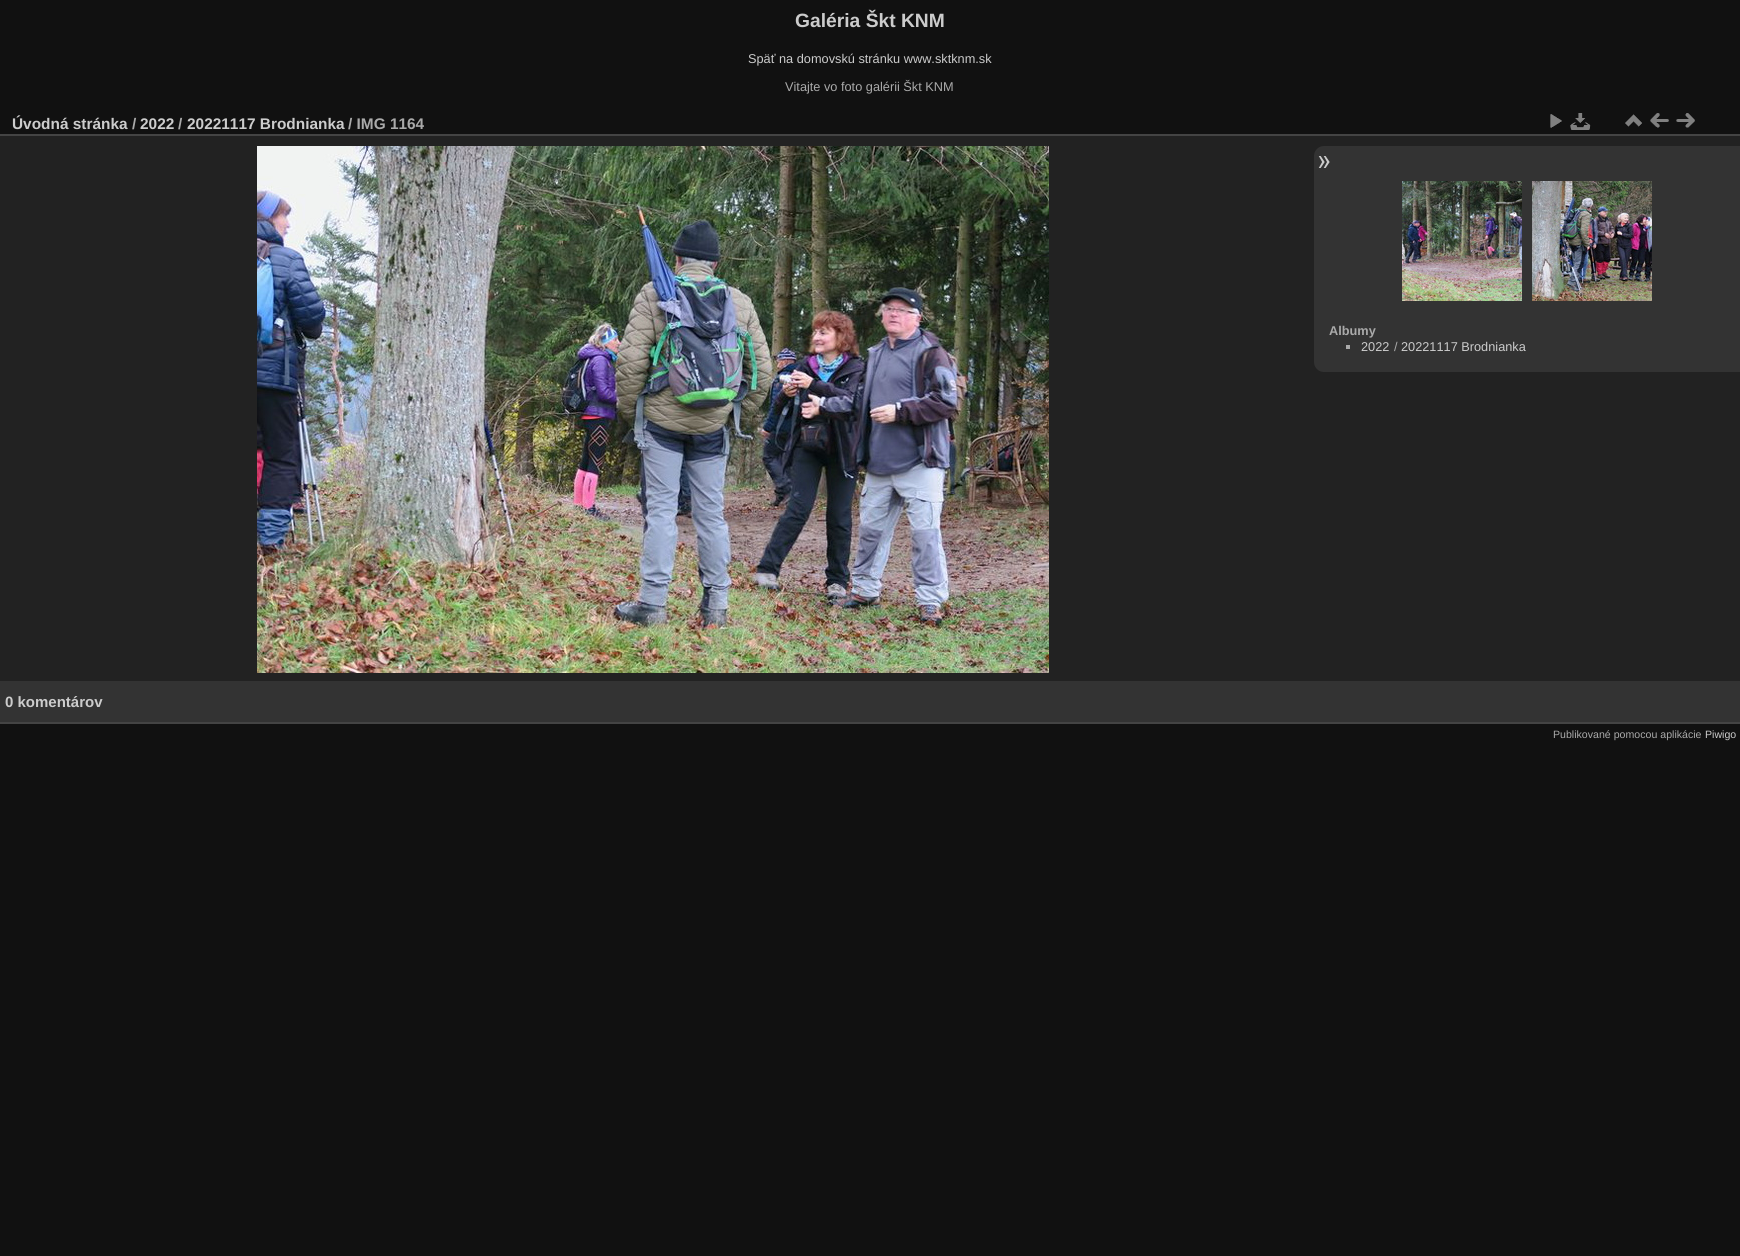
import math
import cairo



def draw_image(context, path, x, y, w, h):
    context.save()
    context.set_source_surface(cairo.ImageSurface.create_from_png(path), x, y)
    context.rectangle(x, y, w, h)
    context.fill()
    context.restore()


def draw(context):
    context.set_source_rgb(17 / 255, 17 / 255, 17 / 255)
    context.paint()
    context.set_source_rgb(34 / 255, 34 / 255, 34 / 255)
    context.rectangle(0, 136, 1740, 545)
    context.fill()
    context.set_source_rgb(68 / 255, 68 / 255, 68 / 255)
    context.rectangle(0, 722, 1740, 2)
    context.fill()
    context.rectangle(0, 134, 1740, 2)
    context.fill()
    draw_image(context, "images/1.png", 1550, 114, 12, 14)
    draw_image(context, "images/2.png", 1570, 113, 21, 17)
    draw_image(context, "images/3.png", 1625, 114, 17, 13)
    draw_image(context, "images/4.png", 1650, 113, 19, 15)
    draw_image(context, "images/5.png", 1676, 113, 19, 15)
    draw_image(context, "images/6.png", 257, 146, 792, 527)
    context.set_source_rgb(51 / 255, 51 / 255, 51 / 255)
    context.new_path()
    context.move_to(1324, 146)
    context.line_to(1740, 146)
    context.line_to(1740, 372)
    context.line_to(1324, 372)
    context.curve_to(1318.5, 372, 1314, 367.5, 1314, 362)
    context.line_to(1314, 156)
    context.curve_to(1314, 150.5, 1318.5, 146, 1324, 146)
    context.close_path()
    context.fill()
    draw_image(context, "images/7.png", 1318, 156, 12, 12)
    draw_image(context, "images/8.png", 1402, 181, 120, 120)
    draw_image(context, "images/9.png", 1532, 181, 120, 120)
    context.set_source_rgb(170 / 255, 170 / 255, 170 / 255)
    context.rectangle(1346, 345, 4, 4)
    context.fill()
    context.set_source_rgb(51 / 255, 51 / 255, 51 / 255)
    context.rectangle(0, 681, 1740, 41)
    context.fill()
    context.select_font_face("Liberation Sans", cairo.FontSlant.NORMAL, cairo.FontWeight.BOLD)
    context.set_font_size(19.25)
    context.set_source_rgb(204 / 255, 204 / 255, 204 / 255)
    context.move_to(795, 27)
    context.show_text("Galéria Škt KNM")
    context.select_font_face("Liberation Sans")
    context.set_font_size(12.75)
    context.move_to(748, 63)
    context.show_text("Späť na domovskú stránku www.sktknm.sk")
    context.set_source_rgb(170 / 255, 170 / 255, 170 / 255)
    context.move_to(785, 91)
    context.show_text("Vitajte vo foto galérii Škt KNM")
    context.select_font_face("Liberation Sans", cairo.FontSlant.NORMAL, cairo.FontWeight.BOLD)
    context.set_font_size(15.4)
    context.set_source_rgb(204 / 255, 204 / 255, 204 / 255)
    context.move_to(12, 129)
    context.show_text("Úvodná stránka")
    context.set_source_rgb(170 / 255, 170 / 255, 170 / 255)
    context.move_to(132, 129)
    context.show_text("/")
    context.set_source_rgb(204 / 255, 204 / 255, 204 / 255)
    context.move_to(140, 129)
    context.show_text("2022")
    context.set_source_rgb(170 / 255, 170 / 255, 170 / 255)
    context.move_to(178, 129)
    context.show_text("/")
    context.set_source_rgb(204 / 255, 204 / 255, 204 / 255)
    context.move_to(187, 129)
    context.show_text("20221117 Brodnianka")
    context.set_source_rgb(170 / 255, 170 / 255, 170 / 255)
    context.move_to(348, 129)
    context.show_text("/ IMG 1164")
    context.set_font_size(12.75)
    context.move_to(1329, 335)
    context.show_text("Albumy")
    context.select_font_face("Liberation Sans")
    context.set_source_rgb(204 / 255, 204 / 255, 204 / 255)
    context.move_to(1361, 351)
    context.show_text("2022")
    context.set_source_rgb(170 / 255, 170 / 255, 170 / 255)
    context.move_to(1394, 351)
    context.show_text("/")
    context.set_source_rgb(204 / 255, 204 / 255, 204 / 255)
    context.move_to(1401, 351)
    context.show_text("20221117 Brodnianka")
    context.select_font_face("Liberation Sans", cairo.FontSlant.NORMAL, cairo.FontWeight.BOLD)
    context.set_font_size(15)
    context.move_to(5, 707)
    context.show_text("0 komentárov")
    context.select_font_face("Liberation Sans")
    context.set_font_size(10.6)
    context.set_source_rgb(170 / 255, 170 / 255, 170 / 255)
    context.move_to(1553, 738)
    context.show_text("Publikované pomocou aplikácie")
    context.set_source_rgb(204 / 255, 204 / 255, 204 / 255)
    context.move_to(1705, 738)
    context.show_text("Piwigo")


surface = cairo.ImageSurface(cairo.Format.RGB24, 1740, 1256)
context = cairo.Context(surface)
options = cairo.FontOptions()
options.set_hint_metrics(cairo.HintMetrics.OFF)
options.set_hint_style(cairo.HintStyle.NONE)
context.set_font_options(options)
context.set_miter_limit(4)
draw(context)
surface.write_to_png("out.png")
